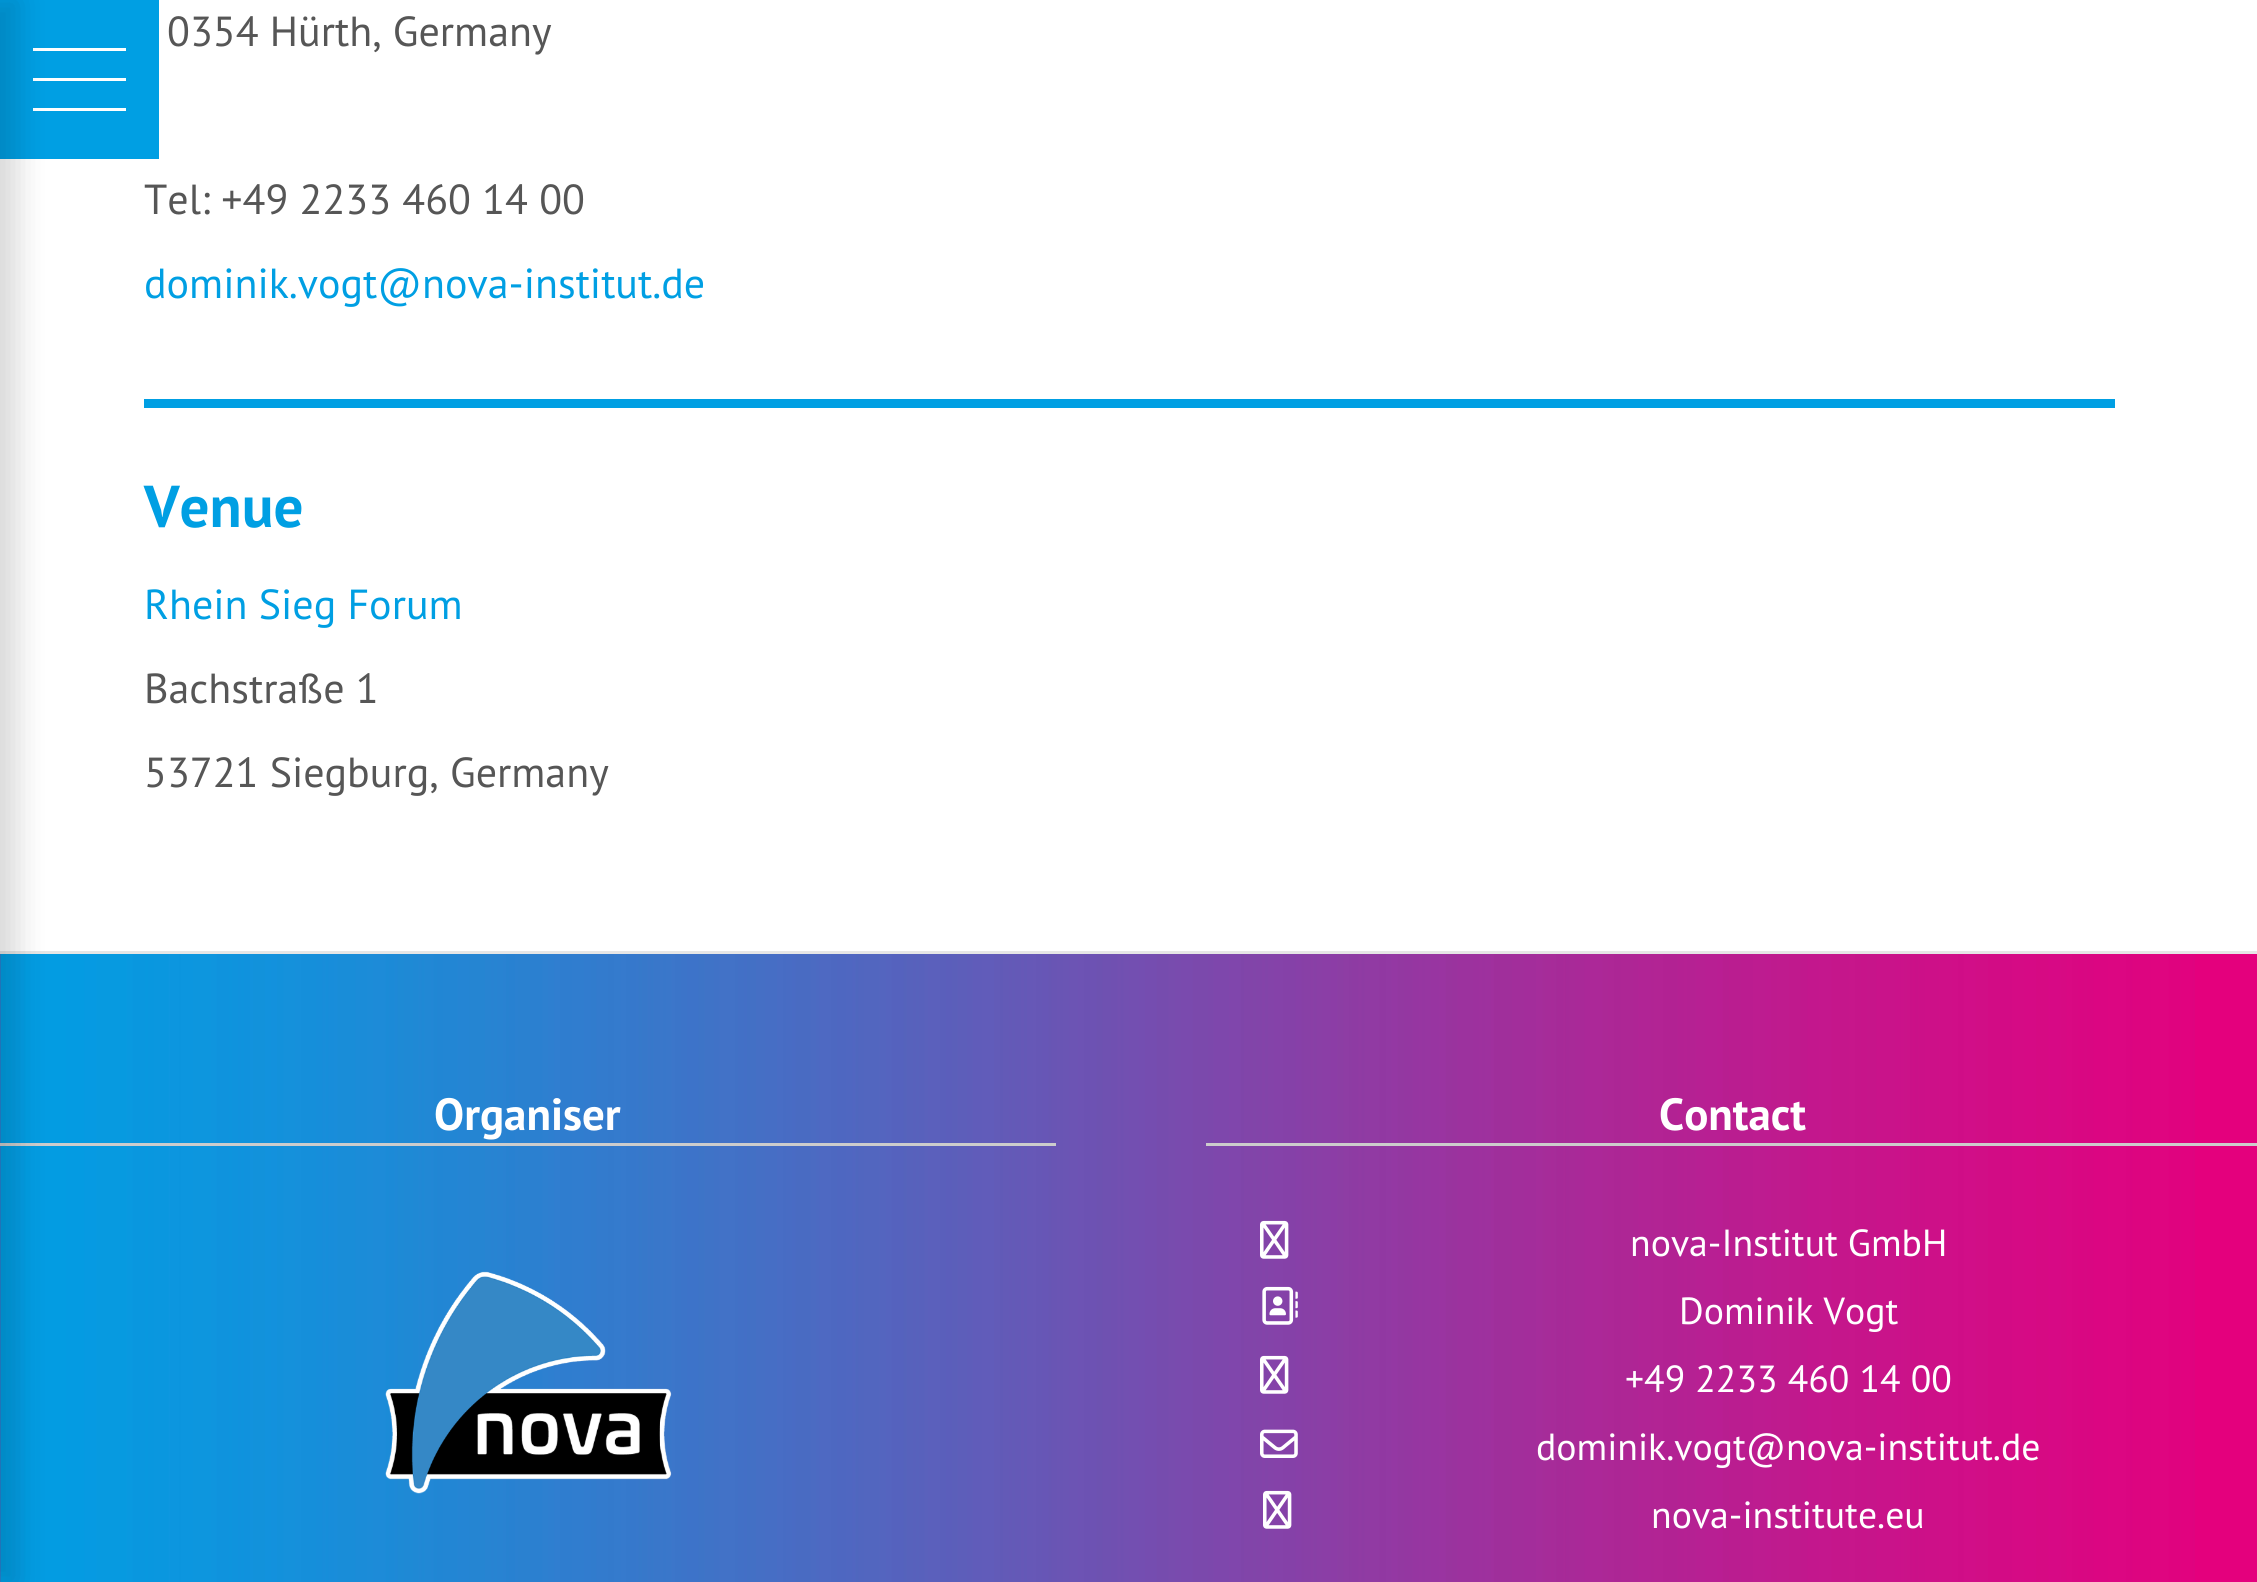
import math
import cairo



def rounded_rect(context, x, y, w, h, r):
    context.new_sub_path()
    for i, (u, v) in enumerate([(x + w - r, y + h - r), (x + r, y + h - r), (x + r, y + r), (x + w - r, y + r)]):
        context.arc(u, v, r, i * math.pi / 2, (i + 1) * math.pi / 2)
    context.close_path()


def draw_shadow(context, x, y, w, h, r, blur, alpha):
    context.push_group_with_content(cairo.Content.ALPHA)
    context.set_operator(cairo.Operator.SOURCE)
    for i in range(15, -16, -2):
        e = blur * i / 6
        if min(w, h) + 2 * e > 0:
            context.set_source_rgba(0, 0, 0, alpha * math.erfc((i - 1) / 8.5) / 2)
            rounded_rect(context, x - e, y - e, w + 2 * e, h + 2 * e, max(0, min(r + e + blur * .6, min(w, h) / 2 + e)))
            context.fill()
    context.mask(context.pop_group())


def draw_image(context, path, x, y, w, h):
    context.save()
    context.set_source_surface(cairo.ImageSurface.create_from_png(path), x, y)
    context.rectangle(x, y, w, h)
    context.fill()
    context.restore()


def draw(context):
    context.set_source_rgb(1, 1, 1)
    context.paint()
    context.set_source_rgb(0, 159 / 255, 227 / 255)
    context.rectangle(0, 0, 159, 159)
    context.fill()
    context.set_source_rgb(1, 1, 1)
    context.rectangle(33, 78, 93, 3)
    context.fill()
    context.rectangle(33, 48, 93, 3)
    context.fill()
    context.rectangle(33, 108, 93, 3)
    context.fill()
    draw_image(context, "images/1.png", 0, 954, 2195, 628)
    context.set_source_rgb(230 / 255, 230 / 255, 230 / 255)
    context.rectangle(0, 951, 2257, 3)
    context.fill()
    context.set_source_rgb(204 / 255, 204 / 255, 204 / 255)
    context.rectangle(0, 1143, 1056, 3)
    context.fill()
    context.set_source_rgb(0, 0, 0)
    draw_shadow(context, -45, 0, 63, 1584, 0, 15, 0.15)
    context.set_source_rgb(0, 159 / 255, 227 / 255)
    context.rectangle(144, 399, 1971, 9)
    context.fill()
    context.set_source_rgb(228 / 255, 0, 125 / 255)
    context.rectangle(2195, 954, 62, 628)
    context.fill()
    draw_image(context, "images/2.png", 385, 1271, 287, 223)
    context.set_source_rgb(204 / 255, 204 / 255, 204 / 255)
    context.rectangle(1206, 1143, 1051, 3)
    context.fill()
    draw_image(context, "images/3.png", 1260, 1220, 29, 39)
    draw_image(context, "images/4.png", 1262, 1286, 36, 39)
    draw_image(context, "images/3.png", 1260, 1355, 29, 39)
    draw_image(context, "images/5.png", 1260, 1429, 38, 29)
    draw_image(context, "images/6.png", 1263, 1490, 29, 39)
    context.select_font_face("PT Sans")
    context.set_font_size(42)
    context.set_source_rgb(86 / 255, 86 / 255, 86 / 255)
    context.move_to(167, 46)
    context.show_text("0354 Hürth, Germany")
    context.move_to(144, 214)
    context.show_text("Tel: +49 2233 460 14 00")
    context.set_source_rgb(0, 159 / 255, 227 / 255)
    context.move_to(144, 298)
    context.show_text("dominik.vogt@nova-institut.de")
    context.select_font_face("PT Sans", cairo.FontSlant.NORMAL, cairo.FontWeight.BOLD)
    context.set_font_size(59)
    context.move_to(144, 527)
    context.show_text("Venue")
    context.select_font_face("PT Sans")
    context.set_font_size(42)
    context.move_to(144, 619)
    context.show_text("Rhein Sieg Forum")
    context.set_source_rgb(86 / 255, 86 / 255, 86 / 255)
    context.move_to(144, 703)
    context.show_text("Bachstraße 1")
    context.move_to(144, 787)
    context.show_text("53721 Siegburg, Germany")
    context.select_font_face("PT Sans", cairo.FontSlant.NORMAL, cairo.FontWeight.BOLD)
    context.set_font_size(45)
    context.set_source_rgb(1, 1, 1)
    context.move_to(434, 1130)
    context.show_text("Organiser")
    context.move_to(1659, 1130)
    context.show_text("Contact")
    context.select_font_face("PT Sans")
    context.set_font_size(37.75)
    context.move_to(1630, 1256)
    context.show_text("nova-Institut GmbH")
    context.move_to(1679, 1324)
    context.show_text("Dominik Vogt")
    context.move_to(1625, 1392)
    context.show_text("+49 2233 460 14 00")
    context.move_to(1536, 1460)
    context.show_text("dominik.vogt@nova-institut.de")
    context.move_to(1651, 1528)
    context.show_text("nova-institute.eu")


surface = cairo.ImageSurface(cairo.Format.RGB24, 2257, 1582)
context = cairo.Context(surface)
options = cairo.FontOptions()
options.set_hint_metrics(cairo.HintMetrics.OFF)
options.set_hint_style(cairo.HintStyle.NONE)
context.set_font_options(options)
context.set_miter_limit(4)
draw(context)
surface.write_to_png("out.png")
